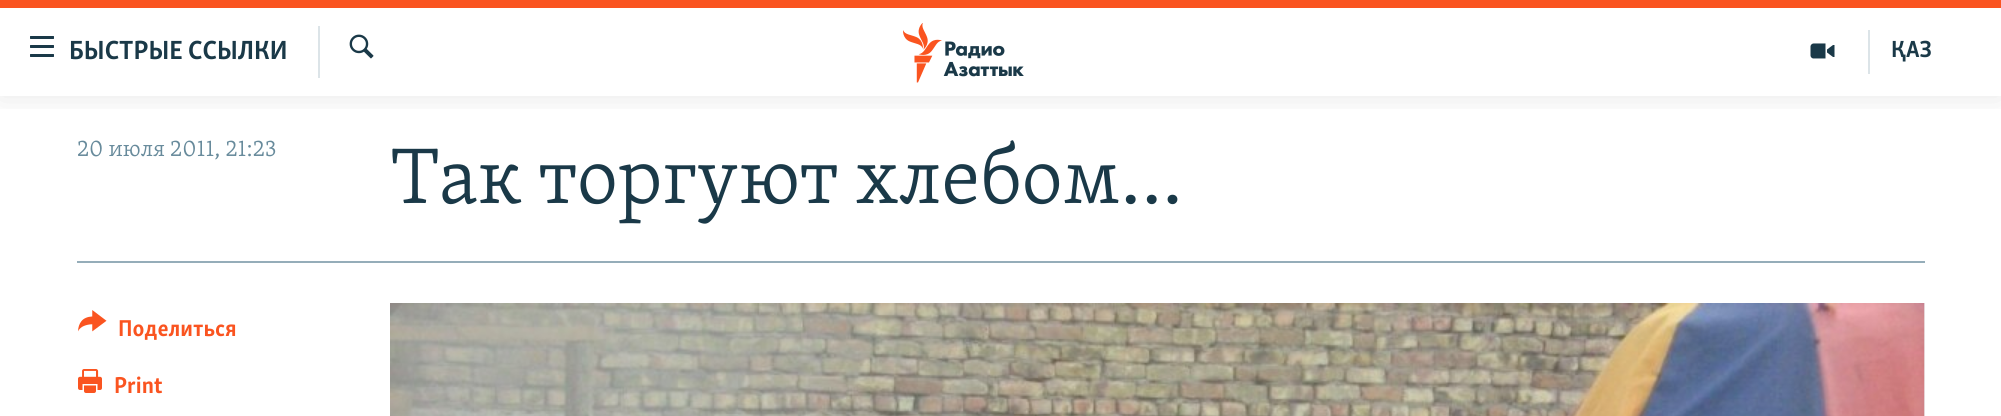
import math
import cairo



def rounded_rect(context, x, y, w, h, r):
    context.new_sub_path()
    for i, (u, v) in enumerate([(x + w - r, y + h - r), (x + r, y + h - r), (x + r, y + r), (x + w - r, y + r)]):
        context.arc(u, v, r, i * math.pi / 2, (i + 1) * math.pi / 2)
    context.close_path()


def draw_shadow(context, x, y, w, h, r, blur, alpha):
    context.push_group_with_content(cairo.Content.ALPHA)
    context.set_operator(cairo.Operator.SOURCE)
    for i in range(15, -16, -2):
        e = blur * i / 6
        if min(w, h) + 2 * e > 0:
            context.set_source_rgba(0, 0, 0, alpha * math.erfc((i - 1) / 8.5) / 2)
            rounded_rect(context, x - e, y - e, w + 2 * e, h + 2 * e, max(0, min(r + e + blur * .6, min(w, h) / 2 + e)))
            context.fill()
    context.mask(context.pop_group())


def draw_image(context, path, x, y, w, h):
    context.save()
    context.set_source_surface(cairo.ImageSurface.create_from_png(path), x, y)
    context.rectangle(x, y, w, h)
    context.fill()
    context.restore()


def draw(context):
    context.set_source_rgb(1, 1, 1)
    context.paint()
    context.save()
    context.rectangle(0, 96, 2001, 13)
    context.clip()
    context.set_source_rgb(0, 0, 0)
    draw_shadow(context, 0, 0, 2001, 96, 0, 15, 0.1)
    context.restore()
    context.set_source_rgb(250 / 255, 84 / 255, 32 / 255)
    context.rectangle(0, 0, 2001, 8)
    context.fill()
    draw_image(context, "images/1.png", 30, 36, 24, 21)
    context.set_source_rgb(220 / 255, 228 / 255, 232 / 255)
    context.rectangle(318, 26, 2, 52)
    context.fill()
    draw_image(context, "images/2.png", 349, 34, 25, 25)
    draw_image(context, "images/3.png", 903, 23, 121, 60)
    context.rectangle(1868, 30, 2, 44)
    context.fill()
    draw_image(context, "images/4.png", 1810, 43, 25, 16)
    context.set_source_rgb(149 / 255, 173 / 255, 185 / 255)
    context.rectangle(77, 261, 1848, 2)
    context.fill()
    draw_image(context, "images/5.png", 78, 310, 29, 22)
    draw_image(context, "images/6.png", 78, 369, 24, 24)
    context.set_source_rgb(237 / 255, 239 / 255, 240 / 255)
    context.rectangle(1924, 303, 1, 113)
    context.fill()
    draw_image(context, "images/7.png", 390, 303, 1535, 113)
    context.select_font_face("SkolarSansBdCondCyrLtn", cairo.FontSlant.NORMAL, cairo.FontWeight.BOLD)
    context.set_font_size(27)
    context.set_source_rgb(26 / 255, 57 / 255, 72 / 255)
    context.move_to(69, 59)
    context.show_text("БЫСТРЫЕ ССЫЛКИ")
    context.set_font_size(24)
    context.move_to(1891, 57)
    context.show_text("ҚАЗ")
    context.select_font_face("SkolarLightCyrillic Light")
    context.set_font_size(23.6)
    context.set_source_rgb(103 / 255, 138 / 255, 155 / 255)
    context.move_to(77, 156)
    context.show_text("20 июля 2011, 21:23")
    context.set_font_size(81)
    context.set_source_rgb(26 / 255, 57 / 255, 72 / 255)
    context.move_to(391, 203)
    context.show_text("Так торгуют хлебом...")
    context.select_font_face("SkolarSansBdCondCyrLtn", cairo.FontSlant.NORMAL, cairo.FontWeight.BOLD)
    context.set_font_size(23.6)
    context.set_source_rgb(250 / 255, 84 / 255, 32 / 255)
    context.move_to(118, 336)
    context.show_text("Поделиться")
    context.move_to(114, 393)
    context.show_text("Print")


surface = cairo.ImageSurface(cairo.Format.RGB24, 2001, 416)
context = cairo.Context(surface)
options = cairo.FontOptions()
options.set_hint_metrics(cairo.HintMetrics.OFF)
options.set_hint_style(cairo.HintStyle.NONE)
context.set_font_options(options)
context.set_miter_limit(4)
draw(context)
surface.write_to_png("out.png")
